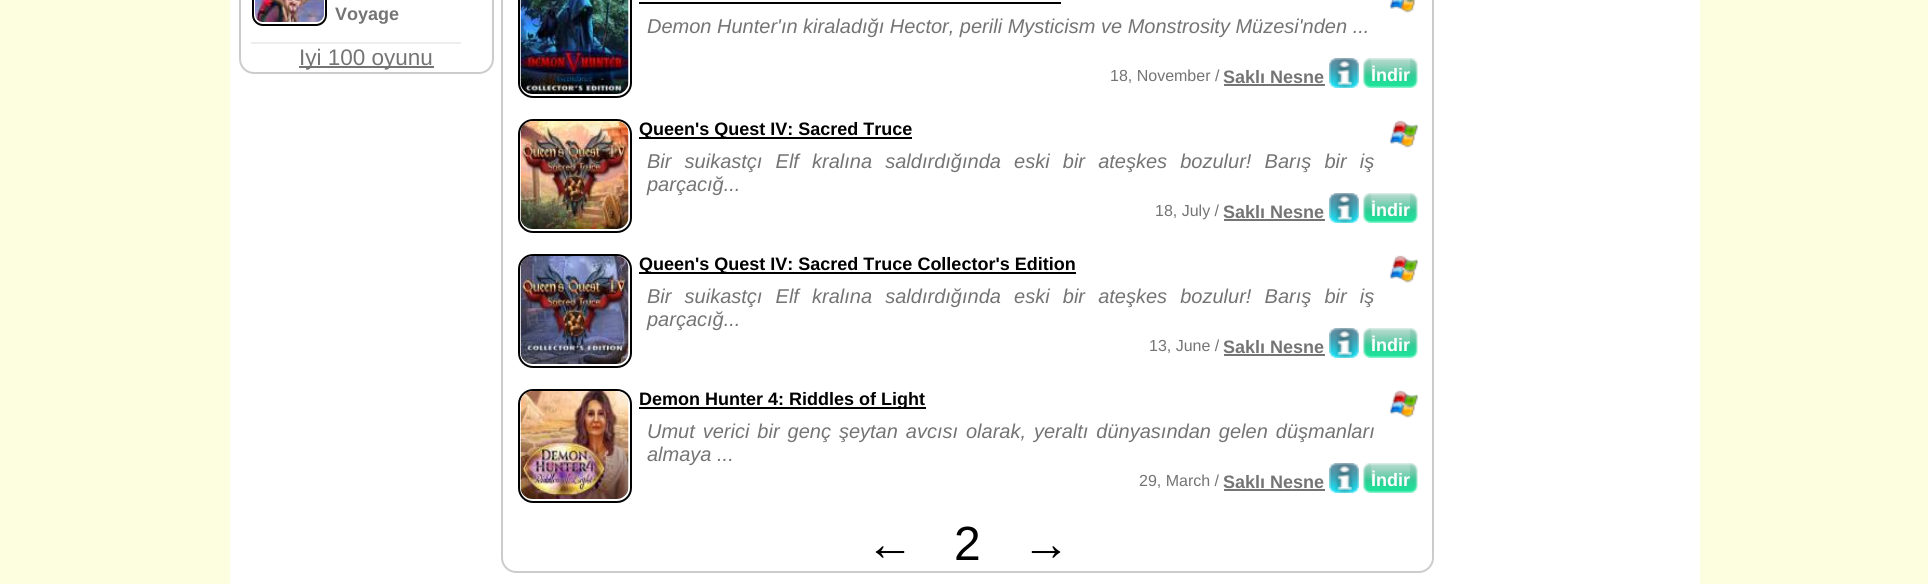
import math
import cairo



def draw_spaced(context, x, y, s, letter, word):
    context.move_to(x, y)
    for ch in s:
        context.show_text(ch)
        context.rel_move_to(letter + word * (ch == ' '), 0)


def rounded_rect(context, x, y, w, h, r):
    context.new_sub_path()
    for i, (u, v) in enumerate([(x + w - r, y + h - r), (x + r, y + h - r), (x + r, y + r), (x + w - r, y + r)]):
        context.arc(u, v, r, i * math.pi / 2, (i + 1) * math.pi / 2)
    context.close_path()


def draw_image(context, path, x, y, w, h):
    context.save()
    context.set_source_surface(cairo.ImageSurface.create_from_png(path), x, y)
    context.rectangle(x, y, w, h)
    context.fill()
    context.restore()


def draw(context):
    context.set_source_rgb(253 / 255, 253 / 255, 224 / 255)
    context.paint()
    context.set_source_rgb(1, 1, 1)
    context.rectangle(230, 0, 1470, 584)
    context.fill()
    rounded_rect(context, 240, -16, 253, 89, 14)
    context.set_source_rgb(204 / 255, 204 / 255, 204 / 255)
    context.stroke()
    rounded_rect(context, 253, -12, 73, 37, 10)
    context.set_source_rgb(0, 0, 0)
    context.stroke()
    draw_image(context, "images/1.png", 255, 0, 69, 22)
    context.set_source_rgb(238 / 255, 238 / 255, 238 / 255)
    context.rectangle(251, 42, 210, 2)
    context.fill()
    context.set_source_rgb(116 / 255, 116 / 255, 116 / 255)
    context.rectangle(299, 66, 135, 2)
    context.fill()
    context.new_path()
    context.move_to(502, -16)
    context.line_to(1433, -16)
    context.line_to(1433, 558)
    context.curve_to(1433, 565.5, 1426.5, 572, 1419, 572)
    context.line_to(516, 572)
    context.curve_to(508.5, 572, 502, 565.5, 502, 558)
    context.close_path()
    context.set_source_rgb(204 / 255, 204 / 255, 204 / 255)
    context.stroke()
    rounded_rect(context, 519, -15, 112, 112, 14)
    context.set_source_rgb(0, 0, 0)
    context.stroke()
    draw_image(context, "images/2.png", 520, 0, 109, 94)
    draw_image(context, "images/3.png", 625, 91, 5, 5)
    draw_image(context, "images/4.png", 1390, 0, 26, 13)
    context.rectangle(639, 2, 422, 2)
    context.fill()
    context.set_source_rgb(116 / 255, 116 / 255, 116 / 255)
    context.rectangle(1224, 84, 101, 2)
    context.fill()
    draw_image(context, "images/5.png", 1329, 58, 30, 30)
    draw_image(context, "images/6.png", 1363, 58, 8, 30)
    draw_image(context, "images/7.png", 1371, 58, 39, 30)
    draw_image(context, "images/8.png", 1410, 58, 8, 30)
    rounded_rect(context, 519, 120, 112, 112, 14)
    context.set_source_rgb(0, 0, 0)
    context.stroke()
    draw_image(context, "images/9.png", 520, 121, 109, 108)
    draw_image(context, "images/3.png", 625, 226, 5, 5)
    context.rectangle(639, 137, 273, 2)
    context.fill()
    draw_image(context, "images/10.png", 1390, 120, 28, 28)
    context.set_source_rgb(116 / 255, 116 / 255, 116 / 255)
    context.rectangle(1224, 219, 101, 2)
    context.fill()
    draw_image(context, "images/5.png", 1329, 193, 30, 30)
    draw_image(context, "images/6.png", 1363, 193, 8, 30)
    draw_image(context, "images/7.png", 1371, 193, 39, 30)
    draw_image(context, "images/8.png", 1410, 193, 8, 30)
    rounded_rect(context, 519, 255, 112, 112, 14)
    context.set_source_rgb(0, 0, 0)
    context.stroke()
    draw_image(context, "images/11.png", 520, 256, 109, 108)
    draw_image(context, "images/3.png", 625, 361, 5, 5)
    context.rectangle(639, 272, 437, 2)
    context.fill()
    draw_image(context, "images/10.png", 1390, 255, 28, 28)
    context.set_source_rgb(116 / 255, 116 / 255, 116 / 255)
    context.rectangle(1224, 354, 101, 2)
    context.fill()
    draw_image(context, "images/5.png", 1329, 328, 30, 30)
    draw_image(context, "images/6.png", 1363, 328, 8, 30)
    draw_image(context, "images/7.png", 1371, 328, 39, 30)
    draw_image(context, "images/8.png", 1410, 328, 8, 30)
    rounded_rect(context, 519, 390, 112, 112, 14)
    context.set_source_rgb(0, 0, 0)
    context.stroke()
    draw_image(context, "images/12.png", 520, 391, 109, 108)
    draw_image(context, "images/3.png", 625, 496, 5, 5)
    context.rectangle(639, 407, 287, 2)
    context.fill()
    draw_image(context, "images/10.png", 1390, 390, 28, 28)
    context.set_source_rgb(116 / 255, 116 / 255, 116 / 255)
    context.rectangle(1224, 489, 101, 2)
    context.fill()
    draw_image(context, "images/5.png", 1329, 463, 30, 30)
    draw_image(context, "images/6.png", 1363, 463, 8, 30)
    draw_image(context, "images/7.png", 1371, 463, 39, 30)
    draw_image(context, "images/8.png", 1410, 463, 8, 30)
    context.select_font_face("Liberation Sans", cairo.FontSlant.NORMAL, cairo.FontWeight.BOLD)
    context.set_font_size(18)
    context.move_to(335, 20)
    context.show_text("Voyage")
    context.select_font_face("Liberation Sans")
    context.set_font_size(22.5)
    context.move_to(299, 65)
    context.show_text("Iyi 100 oyunu")
    context.select_font_face("Liberation Sans", cairo.FontSlant.ITALIC)
    context.set_font_size(20)
    context.move_to(647, 33)
    context.show_text("Demon Hunter'ın kiraladığı Hector, perili Mysticism ve Monstrosity Müzesi'nden ...")
    context.select_font_face("Liberation Sans")
    context.set_font_size(16)
    context.move_to(1110, 81)
    context.show_text("18, November /")
    context.select_font_face("Liberation Sans", cairo.FontSlant.NORMAL, cairo.FontWeight.BOLD)
    context.set_font_size(18)
    context.move_to(1223, 83)
    context.show_text("Saklı Nesne")
    context.set_source_rgb(1, 1, 1)
    context.move_to(1371, 81)
    context.show_text("İndir")
    context.set_source_rgb(0, 0, 0)
    context.move_to(639, 135)
    context.show_text("Queen's Quest IV: Sacred Truce")
    context.select_font_face("Liberation Sans", cairo.FontSlant.ITALIC)
    context.set_font_size(20)
    context.set_source_rgb(116 / 255, 116 / 255, 116 / 255)
    draw_spaced(context, 647, 168, "Bir suikastçı Elf kralına saldırdığında eski bir ateşkes bozulur! Barış bir iş", 0, 7.6)
    context.move_to(647, 191)
    context.show_text("parçacığ...")
    context.select_font_face("Liberation Sans")
    context.set_font_size(16)
    context.move_to(1155, 216)
    context.show_text("18, July /")
    context.select_font_face("Liberation Sans", cairo.FontSlant.NORMAL, cairo.FontWeight.BOLD)
    context.set_font_size(18)
    context.move_to(1223, 218)
    context.show_text("Saklı Nesne")
    context.set_source_rgb(1, 1, 1)
    context.move_to(1371, 216)
    context.show_text("İndir")
    context.set_source_rgb(0, 0, 0)
    context.move_to(639, 270)
    context.show_text("Queen's Quest IV: Sacred Truce Collector's Edition")
    context.select_font_face("Liberation Sans", cairo.FontSlant.ITALIC)
    context.set_font_size(20)
    context.set_source_rgb(116 / 255, 116 / 255, 116 / 255)
    draw_spaced(context, 647, 303, "Bir suikastçı Elf kralına saldırdığında eski bir ateşkes bozulur! Barış bir iş", 0, 7.6)
    context.move_to(647, 326)
    context.show_text("parçacığ...")
    context.select_font_face("Liberation Sans")
    context.set_font_size(16)
    context.move_to(1149, 351)
    context.show_text("13, June /")
    context.select_font_face("Liberation Sans", cairo.FontSlant.NORMAL, cairo.FontWeight.BOLD)
    context.set_font_size(18)
    context.move_to(1223, 353)
    context.show_text("Saklı Nesne")
    context.set_source_rgb(1, 1, 1)
    context.move_to(1371, 351)
    context.show_text("İndir")
    context.set_source_rgb(0, 0, 0)
    context.move_to(639, 405)
    context.show_text("Demon Hunter 4: Riddles of Light")
    context.select_font_face("Liberation Sans", cairo.FontSlant.ITALIC)
    context.set_font_size(20)
    context.set_source_rgb(116 / 255, 116 / 255, 116 / 255)
    draw_spaced(context, 647, 438, "Umut verici bir genç şeytan avcısı olarak, yeraltı dünyasından gelen düşmanları", 0, 2.4)
    context.move_to(647, 461)
    context.show_text("almaya ...")
    context.select_font_face("Liberation Sans")
    context.set_font_size(16)
    context.move_to(1139, 486)
    context.show_text("29, March /")
    context.select_font_face("Liberation Sans", cairo.FontSlant.NORMAL, cairo.FontWeight.BOLD)
    context.set_font_size(18)
    context.move_to(1223, 488)
    context.show_text("Saklı Nesne")
    context.set_source_rgb(1, 1, 1)
    context.move_to(1371, 486)
    context.show_text("İndir")
    context.set_font_size(48)
    context.set_source_rgb(0, 0, 0)
    context.move_to(866, 560)
    context.show_text("←")
    context.select_font_face("Liberation Sans")
    context.move_to(954, 560)
    context.show_text("2")
    context.select_font_face("Liberation Sans", cairo.FontSlant.NORMAL, cairo.FontWeight.BOLD)
    context.move_to(1022, 560)
    context.show_text("→")


surface = cairo.ImageSurface(cairo.Format.RGB24, 1928, 584)
context = cairo.Context(surface)
options = cairo.FontOptions()
options.set_hint_metrics(cairo.HintMetrics.OFF)
options.set_hint_style(cairo.HintStyle.NONE)
context.set_font_options(options)
context.set_miter_limit(4)
draw(context)
surface.write_to_png("out.png")
